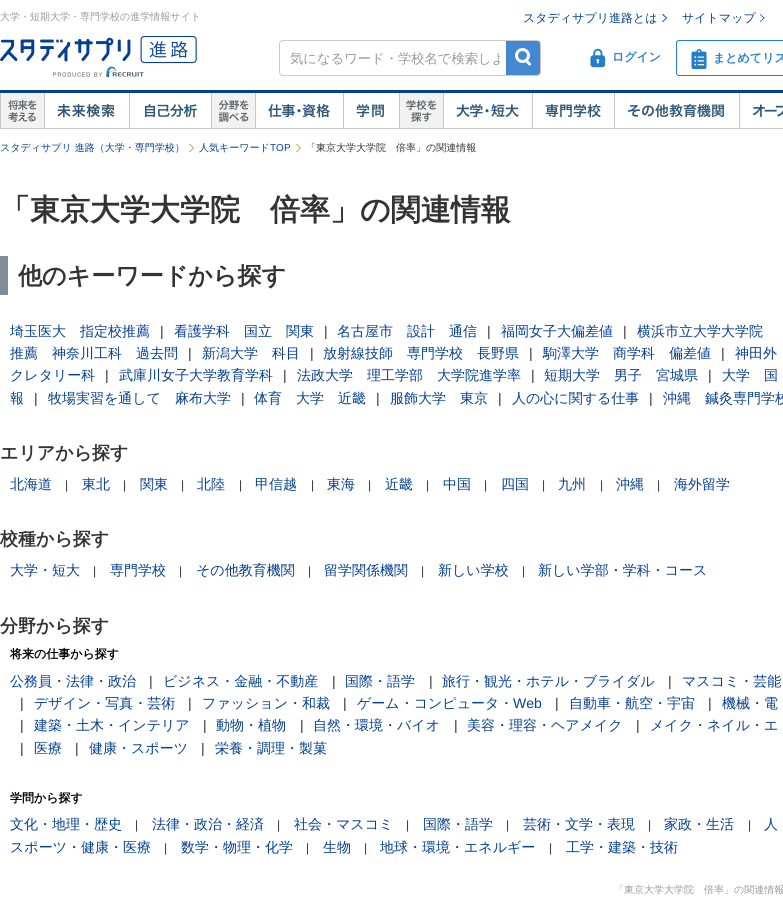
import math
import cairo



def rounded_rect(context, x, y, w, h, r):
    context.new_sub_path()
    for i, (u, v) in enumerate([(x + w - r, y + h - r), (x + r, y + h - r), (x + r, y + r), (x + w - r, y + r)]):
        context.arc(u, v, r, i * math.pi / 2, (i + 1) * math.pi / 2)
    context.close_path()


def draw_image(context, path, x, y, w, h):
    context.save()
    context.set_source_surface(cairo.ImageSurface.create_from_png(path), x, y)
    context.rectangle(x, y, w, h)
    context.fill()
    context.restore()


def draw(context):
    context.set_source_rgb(1, 1, 1)
    context.paint()
    draw_image(context, "images/1.png", 0, 36, 197, 42)
    context.set_source_rgb(0, 51 / 255, 204 / 255)
    context.new_path()
    context.move_to(663, 14)
    context.line_to(667, 18)
    context.line_to(666.5, 18.5)
    context.line_to(662, 14.5)
    context.close_path()
    context.fill()
    context.new_path()
    context.move_to(666.5, 17.5)
    context.line_to(667, 18)
    context.line_to(663, 22)
    context.line_to(662, 21.5)
    context.close_path()
    context.fill()
    context.new_path()
    context.move_to(760.5, 14)
    context.line_to(764.5, 18)
    context.line_to(764, 18.5)
    context.line_to(760, 14.5)
    context.close_path()
    context.fill()
    context.new_path()
    context.move_to(764, 17.5)
    context.line_to(764.5, 18)
    context.line_to(760.5, 22)
    context.line_to(760, 21.5)
    context.close_path()
    context.fill()
    rounded_rect(context, 279.5, 40.5, 261, 35, 3.5)
    context.set_source_rgb(203 / 255, 203 / 255, 203 / 255)
    context.set_line_width(1)
    context.stroke()
    draw_image(context, "images/2.png", 506, 41, 34, 34)
    draw_image(context, "images/3.png", 590, 48, 16, 20)
    rounded_rect(context, 676.5, 40.5, 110, 35, 2.5)
    context.set_source_rgb(35 / 255, 126 / 255, 205 / 255)
    context.stroke()
    draw_image(context, "images/4.png", 691, 49, 16, 20)
    draw_image(context, "images/5.png", 0, 90, 783, 39)
    draw_image(context, "images/6.png", 0, 93, 44, 35)
    draw_image(context, "images/7.png", 44, 93, 71, 35)
    draw_image(context, "images/8.png", 129, 93, 68, 35)
    draw_image(context, "images/9.png", 211, 93, 44, 35)
    draw_image(context, "images/10.png", 255, 93, 75, 35)
    draw_image(context, "images/11.png", 343, 93, 41, 35)
    draw_image(context, "images/12.png", 399, 93, 44, 35)
    draw_image(context, "images/13.png", 443, 93, 76, 35)
    draw_image(context, "images/14.png", 532, 93, 69, 35)
    draw_image(context, "images/15.png", 614, 93, 110, 35)
    draw_image(context, "images/16.png", 739, 93, 44, 35)
    draw_image(context, "images/17.png", 189, 144, 5, 8)
    draw_image(context, "images/17.png", 296, 144, 5, 8)
    context.set_source_rgb(128 / 255, 141 / 255, 150 / 255)
    context.rectangle(0, 256, 8, 39)
    context.fill()
    context.select_font_face("WenQuanYi Zen Hei Medium")
    context.set_font_size(10)
    context.set_source_rgb(153 / 255, 153 / 255, 153 / 255)
    context.move_to(0, 20)
    context.show_text("大学・短期大学・専門学校の進学情報サイト")
    context.set_font_size(12)
    context.set_source_rgb(4 / 255, 63 / 255, 148 / 255)
    context.move_to(523, 22)
    context.show_text("スタディサプリ進路とは")
    context.move_to(682, 22)
    context.show_text("サイトマップ")
    context.save()
    context.rectangle(290, 51, 210, 16)
    context.clip()
    context.set_font_size(13.3)
    context.set_source_rgb(153 / 255, 153 / 255, 153 / 255)
    context.move_to(290, 63)
    context.show_text("気になるワード・学校名で検索しよ")
    context.restore()
    context.select_font_face("WenQuanYi Zen Hei", cairo.FontSlant.NORMAL, cairo.FontWeight.BOLD)
    context.set_source_rgb(35 / 255, 126 / 255, 205 / 255)
    context.move_to(612, 61)
    context.show_text("ログイン")
    context.move_to(713, 62)
    context.show_text("まとめてリス")
    context.select_font_face("WenQuanYi Zen Hei Medium")
    context.set_font_size(10)
    context.set_source_rgb(4 / 255, 63 / 255, 148 / 255)
    context.move_to(0, 151)
    context.show_text("スタディサプリ 進路（大学・専門学校）")
    context.move_to(199, 151)
    context.show_text("人気キーワード")
    context.select_font_face("Liberation Sans")
    context.move_to(270, 151)
    context.show_text("TOP")
    context.select_font_face("WenQuanYi Zen Hei Medium")
    context.set_source_rgb(51 / 255, 51 / 255, 51 / 255)
    context.move_to(306, 151)
    context.show_text("「東京大学大学院　倍率」の関連情報")
    context.select_font_face("WenQuanYi Zen Hei", cairo.FontSlant.NORMAL, cairo.FontWeight.BOLD)
    context.set_font_size(30)
    context.move_to(0, 220)
    context.show_text("「東京大学大学院　倍率」の関連情報")
    context.set_font_size(24)
    context.move_to(18, 284)
    context.show_text("他のキーワードから探す")
    context.select_font_face("WenQuanYi Zen Hei Medium")
    context.set_font_size(14)
    context.set_source_rgb(4 / 255, 63 / 255, 148 / 255)
    context.move_to(10, 336)
    context.show_text("埼玉医大　指定校推薦")
    context.select_font_face("Liberation Sans")
    context.set_source_rgb(51 / 255, 51 / 255, 51 / 255)
    context.move_to(160, 336)
    context.show_text("|")
    context.select_font_face("WenQuanYi Zen Hei Medium")
    context.set_source_rgb(4 / 255, 63 / 255, 148 / 255)
    context.move_to(174, 336)
    context.show_text("看護学科　国立　関東")
    context.select_font_face("Liberation Sans")
    context.set_source_rgb(51 / 255, 51 / 255, 51 / 255)
    context.move_to(324, 336)
    context.show_text("|")
    context.select_font_face("WenQuanYi Zen Hei Medium")
    context.set_source_rgb(4 / 255, 63 / 255, 148 / 255)
    context.move_to(337, 336)
    context.show_text("名古屋市　設計　通信")
    context.select_font_face("Liberation Sans")
    context.set_source_rgb(51 / 255, 51 / 255, 51 / 255)
    context.move_to(487, 336)
    context.show_text("|")
    context.select_font_face("WenQuanYi Zen Hei Medium")
    context.set_source_rgb(4 / 255, 63 / 255, 148 / 255)
    context.move_to(501, 336)
    context.show_text("福岡女子大偏差値")
    context.select_font_face("Liberation Sans")
    context.set_source_rgb(51 / 255, 51 / 255, 51 / 255)
    context.move_to(623, 336)
    context.show_text("|")
    context.select_font_face("WenQuanYi Zen Hei Medium")
    context.set_source_rgb(4 / 255, 63 / 255, 148 / 255)
    context.move_to(637, 336)
    context.show_text("横浜市立大学大学院")
    context.move_to(10, 358)
    context.show_text("推薦　神奈川工科　過去問")
    context.select_font_face("Liberation Sans")
    context.set_source_rgb(51 / 255, 51 / 255, 51 / 255)
    context.move_to(188, 358)
    context.show_text("|")
    context.select_font_face("WenQuanYi Zen Hei Medium")
    context.set_source_rgb(4 / 255, 63 / 255, 148 / 255)
    context.move_to(202, 358)
    context.show_text("新潟大学　科目")
    context.select_font_face("Liberation Sans")
    context.set_source_rgb(51 / 255, 51 / 255, 51 / 255)
    context.move_to(310, 358)
    context.show_text("|")
    context.select_font_face("WenQuanYi Zen Hei Medium")
    context.set_source_rgb(4 / 255, 63 / 255, 148 / 255)
    context.move_to(323, 358)
    context.show_text("放射線技師　専門学校　長野県")
    context.select_font_face("Liberation Sans")
    context.set_source_rgb(51 / 255, 51 / 255, 51 / 255)
    context.move_to(529, 358)
    context.show_text("|")
    context.select_font_face("WenQuanYi Zen Hei Medium")
    context.set_source_rgb(4 / 255, 63 / 255, 148 / 255)
    context.move_to(543, 358)
    context.show_text("駒澤大学　商学科　偏差値")
    context.select_font_face("Liberation Sans")
    context.set_source_rgb(51 / 255, 51 / 255, 51 / 255)
    context.move_to(721, 358)
    context.show_text("|")
    context.select_font_face("WenQuanYi Zen Hei Medium")
    context.set_source_rgb(4 / 255, 63 / 255, 148 / 255)
    context.move_to(735, 358)
    context.show_text("神田外")
    context.move_to(10, 380)
    context.show_text("クレタリー科")
    context.select_font_face("Liberation Sans")
    context.set_source_rgb(51 / 255, 51 / 255, 51 / 255)
    context.move_to(105, 380)
    context.show_text("|")
    context.select_font_face("WenQuanYi Zen Hei Medium")
    context.set_source_rgb(4 / 255, 63 / 255, 148 / 255)
    context.move_to(119, 380)
    context.show_text("武庫川女子大学教育学科")
    context.select_font_face("Liberation Sans")
    context.set_source_rgb(51 / 255, 51 / 255, 51 / 255)
    context.move_to(283, 380)
    context.show_text("|")
    context.select_font_face("WenQuanYi Zen Hei Medium")
    context.set_source_rgb(4 / 255, 63 / 255, 148 / 255)
    context.move_to(297, 380)
    context.show_text("法政大学　理工学部　大学院進学率")
    context.select_font_face("Liberation Sans")
    context.set_source_rgb(51 / 255, 51 / 255, 51 / 255)
    context.move_to(531, 380)
    context.show_text("|")
    context.select_font_face("WenQuanYi Zen Hei Medium")
    context.set_source_rgb(4 / 255, 63 / 255, 148 / 255)
    context.move_to(544, 380)
    context.show_text("短期大学　男子　宮城県")
    context.select_font_face("Liberation Sans")
    context.set_source_rgb(51 / 255, 51 / 255, 51 / 255)
    context.move_to(708, 380)
    context.show_text("|")
    context.select_font_face("WenQuanYi Zen Hei Medium")
    context.set_source_rgb(4 / 255, 63 / 255, 148 / 255)
    context.move_to(722, 380)
    context.show_text("大学　国")
    context.move_to(10, 403)
    context.show_text("報")
    context.select_font_face("Liberation Sans")
    context.set_source_rgb(51 / 255, 51 / 255, 51 / 255)
    context.move_to(34, 403)
    context.show_text("|")
    context.select_font_face("WenQuanYi Zen Hei Medium")
    context.set_source_rgb(4 / 255, 63 / 255, 148 / 255)
    context.move_to(48, 403)
    context.show_text("牧場実習を通して　麻布大学")
    context.select_font_face("Liberation Sans")
    context.set_source_rgb(51 / 255, 51 / 255, 51 / 255)
    context.move_to(241, 403)
    context.show_text("|")
    context.select_font_face("WenQuanYi Zen Hei Medium")
    context.set_source_rgb(4 / 255, 63 / 255, 148 / 255)
    context.move_to(254, 403)
    context.show_text("体育　大学　近畿")
    context.select_font_face("Liberation Sans")
    context.set_source_rgb(51 / 255, 51 / 255, 51 / 255)
    context.move_to(376, 403)
    context.show_text("|")
    context.select_font_face("WenQuanYi Zen Hei Medium")
    context.set_source_rgb(4 / 255, 63 / 255, 148 / 255)
    context.move_to(390, 403)
    context.show_text("服飾大学　東京")
    context.select_font_face("Liberation Sans")
    context.set_source_rgb(51 / 255, 51 / 255, 51 / 255)
    context.move_to(498, 403)
    context.show_text("|")
    context.select_font_face("WenQuanYi Zen Hei Medium")
    context.set_source_rgb(4 / 255, 63 / 255, 148 / 255)
    context.move_to(512, 403)
    context.show_text("人の心に関する仕事")
    context.select_font_face("Liberation Sans")
    context.set_source_rgb(51 / 255, 51 / 255, 51 / 255)
    context.move_to(649, 403)
    context.show_text("|")
    context.select_font_face("WenQuanYi Zen Hei Medium")
    context.set_source_rgb(4 / 255, 63 / 255, 148 / 255)
    context.move_to(663, 403)
    context.show_text("沖縄　鍼灸専門学校")
    context.select_font_face("WenQuanYi Zen Hei", cairo.FontSlant.NORMAL, cairo.FontWeight.BOLD)
    context.set_font_size(18)
    context.set_source_rgb(51 / 255, 51 / 255, 51 / 255)
    context.move_to(0, 459)
    context.show_text("エリアから探す")
    context.select_font_face("WenQuanYi Zen Hei Medium")
    context.set_font_size(14)
    context.set_source_rgb(4 / 255, 63 / 255, 148 / 255)
    context.move_to(10, 489)
    context.show_text("北海道")
    context.select_font_face("Liberation Sans")
    context.set_font_size(12)
    context.set_source_rgb(51 / 255, 51 / 255, 51 / 255)
    context.move_to(65, 489)
    context.show_text("|")
    context.select_font_face("WenQuanYi Zen Hei Medium")
    context.set_font_size(14)
    context.set_source_rgb(4 / 255, 63 / 255, 148 / 255)
    context.move_to(82, 489)
    context.show_text("東北")
    context.select_font_face("Liberation Sans")
    context.set_font_size(12)
    context.set_source_rgb(51 / 255, 51 / 255, 51 / 255)
    context.move_to(123, 489)
    context.show_text("|")
    context.select_font_face("WenQuanYi Zen Hei Medium")
    context.set_font_size(14)
    context.set_source_rgb(4 / 255, 63 / 255, 148 / 255)
    context.move_to(140, 489)
    context.show_text("関東")
    context.select_font_face("Liberation Sans")
    context.set_font_size(12)
    context.set_source_rgb(51 / 255, 51 / 255, 51 / 255)
    context.move_to(181, 489)
    context.show_text("|")
    context.select_font_face("WenQuanYi Zen Hei Medium")
    context.set_font_size(14)
    context.set_source_rgb(4 / 255, 63 / 255, 148 / 255)
    context.move_to(197, 489)
    context.show_text("北陸")
    context.select_font_face("Liberation Sans")
    context.set_font_size(12)
    context.set_source_rgb(51 / 255, 51 / 255, 51 / 255)
    context.move_to(239, 489)
    context.show_text("|")
    context.select_font_face("WenQuanYi Zen Hei Medium")
    context.set_font_size(14)
    context.set_source_rgb(4 / 255, 63 / 255, 148 / 255)
    context.move_to(255, 489)
    context.show_text("甲信越")
    context.select_font_face("Liberation Sans")
    context.set_font_size(12)
    context.set_source_rgb(51 / 255, 51 / 255, 51 / 255)
    context.move_to(311, 489)
    context.show_text("|")
    context.select_font_face("WenQuanYi Zen Hei Medium")
    context.set_font_size(14)
    context.set_source_rgb(4 / 255, 63 / 255, 148 / 255)
    context.move_to(327, 489)
    context.show_text("東海")
    context.select_font_face("Liberation Sans")
    context.set_font_size(12)
    context.set_source_rgb(51 / 255, 51 / 255, 51 / 255)
    context.move_to(368, 489)
    context.show_text("|")
    context.select_font_face("WenQuanYi Zen Hei Medium")
    context.set_font_size(14)
    context.set_source_rgb(4 / 255, 63 / 255, 148 / 255)
    context.move_to(385, 489)
    context.show_text("近畿")
    context.select_font_face("Liberation Sans")
    context.set_font_size(12)
    context.set_source_rgb(51 / 255, 51 / 255, 51 / 255)
    context.move_to(426, 489)
    context.show_text("|")
    context.select_font_face("WenQuanYi Zen Hei Medium")
    context.set_font_size(14)
    context.set_source_rgb(4 / 255, 63 / 255, 148 / 255)
    context.move_to(443, 489)
    context.show_text("中国")
    context.select_font_face("Liberation Sans")
    context.set_font_size(12)
    context.set_source_rgb(51 / 255, 51 / 255, 51 / 255)
    context.move_to(484, 489)
    context.show_text("|")
    context.select_font_face("WenQuanYi Zen Hei Medium")
    context.set_font_size(14)
    context.set_source_rgb(4 / 255, 63 / 255, 148 / 255)
    context.move_to(501, 489)
    context.show_text("四国")
    context.select_font_face("Liberation Sans")
    context.set_font_size(12)
    context.set_source_rgb(51 / 255, 51 / 255, 51 / 255)
    context.move_to(542, 489)
    context.show_text("|")
    context.select_font_face("WenQuanYi Zen Hei Medium")
    context.set_font_size(14)
    context.set_source_rgb(4 / 255, 63 / 255, 148 / 255)
    context.move_to(558, 489)
    context.show_text("九州")
    context.select_font_face("Liberation Sans")
    context.set_font_size(12)
    context.set_source_rgb(51 / 255, 51 / 255, 51 / 255)
    context.move_to(600, 489)
    context.show_text("|")
    context.select_font_face("WenQuanYi Zen Hei Medium")
    context.set_font_size(14)
    context.set_source_rgb(4 / 255, 63 / 255, 148 / 255)
    context.move_to(616, 489)
    context.show_text("沖縄")
    context.select_font_face("Liberation Sans")
    context.set_font_size(12)
    context.set_source_rgb(51 / 255, 51 / 255, 51 / 255)
    context.move_to(657, 489)
    context.show_text("|")
    context.select_font_face("WenQuanYi Zen Hei Medium")
    context.set_font_size(14)
    context.set_source_rgb(4 / 255, 63 / 255, 148 / 255)
    context.move_to(674, 489)
    context.show_text("海外留学")
    context.select_font_face("WenQuanYi Zen Hei", cairo.FontSlant.NORMAL, cairo.FontWeight.BOLD)
    context.set_font_size(18)
    context.set_source_rgb(51 / 255, 51 / 255, 51 / 255)
    context.move_to(0, 545)
    context.show_text("校種から探す")
    context.select_font_face("WenQuanYi Zen Hei Medium")
    context.set_font_size(14)
    context.set_source_rgb(4 / 255, 63 / 255, 148 / 255)
    context.move_to(10, 575)
    context.show_text("大学・短大")
    context.select_font_face("Liberation Sans")
    context.set_font_size(12)
    context.set_source_rgb(51 / 255, 51 / 255, 51 / 255)
    context.move_to(93, 575)
    context.show_text("|")
    context.select_font_face("WenQuanYi Zen Hei Medium")
    context.set_font_size(14)
    context.set_source_rgb(4 / 255, 63 / 255, 148 / 255)
    context.move_to(110, 575)
    context.show_text("専門学校")
    context.select_font_face("Liberation Sans")
    context.set_font_size(12)
    context.set_source_rgb(51 / 255, 51 / 255, 51 / 255)
    context.move_to(179, 575)
    context.show_text("|")
    context.select_font_face("WenQuanYi Zen Hei Medium")
    context.set_font_size(14)
    context.set_source_rgb(4 / 255, 63 / 255, 148 / 255)
    context.move_to(196, 575)
    context.show_text("その他教育機関")
    context.select_font_face("Liberation Sans")
    context.set_font_size(12)
    context.set_source_rgb(51 / 255, 51 / 255, 51 / 255)
    context.move_to(308, 575)
    context.show_text("|")
    context.select_font_face("WenQuanYi Zen Hei Medium")
    context.set_font_size(14)
    context.set_source_rgb(4 / 255, 63 / 255, 148 / 255)
    context.move_to(324, 575)
    context.show_text("留学関係機関")
    context.select_font_face("Liberation Sans")
    context.set_font_size(12)
    context.set_source_rgb(51 / 255, 51 / 255, 51 / 255)
    context.move_to(421, 575)
    context.show_text("|")
    context.select_font_face("WenQuanYi Zen Hei Medium")
    context.set_font_size(14)
    context.set_source_rgb(4 / 255, 63 / 255, 148 / 255)
    context.move_to(438, 575)
    context.show_text("新しい学校")
    context.select_font_face("Liberation Sans")
    context.set_font_size(12)
    context.set_source_rgb(51 / 255, 51 / 255, 51 / 255)
    context.move_to(522, 575)
    context.show_text("|")
    context.select_font_face("WenQuanYi Zen Hei Medium")
    context.set_font_size(14)
    context.set_source_rgb(4 / 255, 63 / 255, 148 / 255)
    context.move_to(538, 575)
    context.show_text("新しい学部・学科・コース")
    context.select_font_face("WenQuanYi Zen Hei", cairo.FontSlant.NORMAL, cairo.FontWeight.BOLD)
    context.set_font_size(18)
    context.set_source_rgb(51 / 255, 51 / 255, 51 / 255)
    context.move_to(0, 632)
    context.show_text("分野から探す")
    context.set_font_size(12)
    context.set_source_rgb(0, 0, 0)
    context.move_to(10, 658)
    context.show_text("将来の仕事から探す")
    context.select_font_face("WenQuanYi Zen Hei Medium")
    context.set_font_size(14)
    context.set_source_rgb(4 / 255, 63 / 255, 148 / 255)
    context.move_to(10, 686)
    context.show_text("公務員・法律・政治")
    context.select_font_face("Liberation Sans")
    context.set_source_rgb(51 / 255, 51 / 255, 51 / 255)
    context.move_to(149, 686)
    context.show_text("|")
    context.select_font_face("WenQuanYi Zen Hei Medium")
    context.set_source_rgb(4 / 255, 63 / 255, 148 / 255)
    context.move_to(163, 686)
    context.show_text("ビジネス・金融・不動産")
    context.select_font_face("Liberation Sans")
    context.set_source_rgb(51 / 255, 51 / 255, 51 / 255)
    context.move_to(332, 686)
    context.show_text("|")
    context.select_font_face("WenQuanYi Zen Hei Medium")
    context.set_source_rgb(4 / 255, 63 / 255, 148 / 255)
    context.move_to(345, 686)
    context.show_text("国際・語学")
    context.select_font_face("Liberation Sans")
    context.set_source_rgb(51 / 255, 51 / 255, 51 / 255)
    context.move_to(429, 686)
    context.show_text("|")
    context.select_font_face("WenQuanYi Zen Hei Medium")
    context.set_source_rgb(4 / 255, 63 / 255, 148 / 255)
    context.move_to(442, 686)
    context.show_text("旅行・観光・ホテル・ブライダル")
    context.select_font_face("Liberation Sans")
    context.set_source_rgb(51 / 255, 51 / 255, 51 / 255)
    context.move_to(668, 686)
    context.show_text("|")
    context.select_font_face("WenQuanYi Zen Hei Medium")
    context.set_source_rgb(4 / 255, 63 / 255, 148 / 255)
    context.move_to(682, 686)
    context.show_text("マスコミ・芸能")
    context.select_font_face("Liberation Sans")
    context.set_source_rgb(51 / 255, 51 / 255, 51 / 255)
    context.move_to(20, 708)
    context.show_text("|")
    context.select_font_face("WenQuanYi Zen Hei Medium")
    context.set_source_rgb(4 / 255, 63 / 255, 148 / 255)
    context.move_to(34, 708)
    context.show_text("デザイン・写真・芸術")
    context.select_font_face("Liberation Sans")
    context.set_source_rgb(51 / 255, 51 / 255, 51 / 255)
    context.move_to(188, 708)
    context.show_text("|")
    context.select_font_face("WenQuanYi Zen Hei Medium")
    context.set_source_rgb(4 / 255, 63 / 255, 148 / 255)
    context.move_to(202, 708)
    context.show_text("ファッション・和裁")
    context.select_font_face("Liberation Sans")
    context.set_source_rgb(51 / 255, 51 / 255, 51 / 255)
    context.move_to(343, 708)
    context.show_text("|")
    context.select_font_face("WenQuanYi Zen Hei Medium")
    context.set_source_rgb(4 / 255, 63 / 255, 148 / 255)
    context.move_to(357, 708)
    context.show_text("ゲーム・コンピュータ・")
    context.select_font_face("Liberation Sans")
    context.move_to(513, 708)
    context.show_text("Web")
    context.set_source_rgb(51 / 255, 51 / 255, 51 / 255)
    context.move_to(555, 708)
    context.show_text("|")
    context.select_font_face("WenQuanYi Zen Hei Medium")
    context.set_source_rgb(4 / 255, 63 / 255, 148 / 255)
    context.move_to(569, 708)
    context.show_text("自動車・航空・宇宙")
    context.select_font_face("Liberation Sans")
    context.set_source_rgb(51 / 255, 51 / 255, 51 / 255)
    context.move_to(708, 708)
    context.show_text("|")
    context.select_font_face("WenQuanYi Zen Hei Medium")
    context.set_source_rgb(4 / 255, 63 / 255, 148 / 255)
    context.move_to(722, 708)
    context.show_text("機械・電")
    context.select_font_face("Liberation Sans")
    context.set_source_rgb(51 / 255, 51 / 255, 51 / 255)
    context.move_to(20, 730)
    context.show_text("|")
    context.select_font_face("WenQuanYi Zen Hei Medium")
    context.set_source_rgb(4 / 255, 63 / 255, 148 / 255)
    context.move_to(34, 730)
    context.show_text("建築・土木・インテリア")
    context.select_font_face("Liberation Sans")
    context.set_source_rgb(51 / 255, 51 / 255, 51 / 255)
    context.move_to(203, 730)
    context.show_text("|")
    context.select_font_face("WenQuanYi Zen Hei Medium")
    context.set_source_rgb(4 / 255, 63 / 255, 148 / 255)
    context.move_to(216, 730)
    context.show_text("動物・植物")
    context.select_font_face("Liberation Sans")
    context.set_source_rgb(51 / 255, 51 / 255, 51 / 255)
    context.move_to(300, 730)
    context.show_text("|")
    context.select_font_face("WenQuanYi Zen Hei Medium")
    context.set_source_rgb(4 / 255, 63 / 255, 148 / 255)
    context.move_to(313, 730)
    context.show_text("自然・環境・バイオ")
    context.select_font_face("Liberation Sans")
    context.set_source_rgb(51 / 255, 51 / 255, 51 / 255)
    context.move_to(454, 730)
    context.show_text("|")
    context.select_font_face("WenQuanYi Zen Hei Medium")
    context.set_source_rgb(4 / 255, 63 / 255, 148 / 255)
    context.move_to(467, 730)
    context.show_text("美容・理容・ヘアメイク")
    context.select_font_face("Liberation Sans")
    context.set_source_rgb(51 / 255, 51 / 255, 51 / 255)
    context.move_to(636, 730)
    context.show_text("|")
    context.select_font_face("WenQuanYi Zen Hei Medium")
    context.set_source_rgb(4 / 255, 63 / 255, 148 / 255)
    context.move_to(650, 730)
    context.show_text("メイク・ネイル・エ")
    context.select_font_face("Liberation Sans")
    context.set_source_rgb(51 / 255, 51 / 255, 51 / 255)
    context.move_to(20, 753)
    context.show_text("|")
    context.select_font_face("WenQuanYi Zen Hei Medium")
    context.set_source_rgb(4 / 255, 63 / 255, 148 / 255)
    context.move_to(34, 753)
    context.show_text("医療")
    context.select_font_face("Liberation Sans")
    context.set_source_rgb(51 / 255, 51 / 255, 51 / 255)
    context.move_to(75, 753)
    context.show_text("|")
    context.select_font_face("WenQuanYi Zen Hei Medium")
    context.set_source_rgb(4 / 255, 63 / 255, 148 / 255)
    context.move_to(89, 753)
    context.show_text("健康・スポーツ")
    context.select_font_face("Liberation Sans")
    context.set_source_rgb(51 / 255, 51 / 255, 51 / 255)
    context.move_to(201, 753)
    context.show_text("|")
    context.select_font_face("WenQuanYi Zen Hei Medium")
    context.set_source_rgb(4 / 255, 63 / 255, 148 / 255)
    context.move_to(215, 753)
    context.show_text("栄養・調理・製菓")
    context.select_font_face("WenQuanYi Zen Hei", cairo.FontSlant.NORMAL, cairo.FontWeight.BOLD)
    context.set_font_size(12)
    context.set_source_rgb(0, 0, 0)
    context.move_to(10, 802)
    context.show_text("学問から探す")
    context.select_font_face("WenQuanYi Zen Hei Medium")
    context.set_font_size(14)
    context.set_source_rgb(4 / 255, 63 / 255, 148 / 255)
    context.move_to(10, 829)
    context.show_text("文化・地理・歴史")
    context.select_font_face("Liberation Sans")
    context.set_font_size(12)
    context.set_source_rgb(51 / 255, 51 / 255, 51 / 255)
    context.move_to(135, 829)
    context.show_text("|")
    context.select_font_face("WenQuanYi Zen Hei Medium")
    context.set_font_size(14)
    context.set_source_rgb(4 / 255, 63 / 255, 148 / 255)
    context.move_to(152, 829)
    context.show_text("法律・政治・経済")
    context.select_font_face("Liberation Sans")
    context.set_font_size(12)
    context.set_source_rgb(51 / 255, 51 / 255, 51 / 255)
    context.move_to(277, 829)
    context.show_text("|")
    context.select_font_face("WenQuanYi Zen Hei Medium")
    context.set_font_size(14)
    context.set_source_rgb(4 / 255, 63 / 255, 148 / 255)
    context.move_to(294, 829)
    context.show_text("社会・マスコミ")
    context.select_font_face("Liberation Sans")
    context.set_font_size(12)
    context.set_source_rgb(51 / 255, 51 / 255, 51 / 255)
    context.move_to(406, 829)
    context.show_text("|")
    context.select_font_face("WenQuanYi Zen Hei Medium")
    context.set_font_size(14)
    context.set_source_rgb(4 / 255, 63 / 255, 148 / 255)
    context.move_to(423, 829)
    context.show_text("国際・語学")
    context.select_font_face("Liberation Sans")
    context.set_font_size(12)
    context.set_source_rgb(51 / 255, 51 / 255, 51 / 255)
    context.move_to(506, 829)
    context.show_text("|")
    context.select_font_face("WenQuanYi Zen Hei Medium")
    context.set_font_size(14)
    context.set_source_rgb(4 / 255, 63 / 255, 148 / 255)
    context.move_to(523, 829)
    context.show_text("芸術・文学・表現")
    context.select_font_face("Liberation Sans")
    context.set_font_size(12)
    context.set_source_rgb(51 / 255, 51 / 255, 51 / 255)
    context.move_to(648, 829)
    context.show_text("|")
    context.select_font_face("WenQuanYi Zen Hei Medium")
    context.set_font_size(14)
    context.set_source_rgb(4 / 255, 63 / 255, 148 / 255)
    context.move_to(664, 829)
    context.show_text("家政・生活")
    context.select_font_face("Liberation Sans")
    context.set_font_size(12)
    context.set_source_rgb(51 / 255, 51 / 255, 51 / 255)
    context.move_to(748, 829)
    context.show_text("|")
    context.select_font_face("WenQuanYi Zen Hei Medium")
    context.set_font_size(14)
    context.set_source_rgb(4 / 255, 63 / 255, 148 / 255)
    context.move_to(764, 829)
    context.show_text("人")
    context.move_to(10, 852)
    context.show_text("スポーツ・健康・医療")
    context.select_font_face("Liberation Sans")
    context.set_font_size(12)
    context.set_source_rgb(51 / 255, 51 / 255, 51 / 255)
    context.move_to(164, 852)
    context.show_text("|")
    context.select_font_face("WenQuanYi Zen Hei Medium")
    context.set_font_size(14)
    context.set_source_rgb(4 / 255, 63 / 255, 148 / 255)
    context.move_to(181, 852)
    context.show_text("数学・物理・化学")
    context.select_font_face("Liberation Sans")
    context.set_font_size(12)
    context.set_source_rgb(51 / 255, 51 / 255, 51 / 255)
    context.move_to(306, 852)
    context.show_text("|")
    context.select_font_face("WenQuanYi Zen Hei Medium")
    context.set_font_size(14)
    context.set_source_rgb(4 / 255, 63 / 255, 148 / 255)
    context.move_to(323, 852)
    context.show_text("生物")
    context.select_font_face("Liberation Sans")
    context.set_font_size(12)
    context.set_source_rgb(51 / 255, 51 / 255, 51 / 255)
    context.move_to(364, 852)
    context.show_text("|")
    context.select_font_face("WenQuanYi Zen Hei Medium")
    context.set_font_size(14)
    context.set_source_rgb(4 / 255, 63 / 255, 148 / 255)
    context.move_to(380, 852)
    context.show_text("地球・環境・エネルギー")
    context.select_font_face("Liberation Sans")
    context.set_font_size(12)
    context.set_source_rgb(51 / 255, 51 / 255, 51 / 255)
    context.move_to(549, 852)
    context.show_text("|")
    context.select_font_face("WenQuanYi Zen Hei Medium")
    context.set_font_size(14)
    context.set_source_rgb(4 / 255, 63 / 255, 148 / 255)
    context.move_to(566, 852)
    context.show_text("工学・建築・技術")
    context.set_font_size(10)
    context.set_source_rgb(153 / 255, 153 / 255, 153 / 255)
    context.move_to(614, 893)
    context.show_text("「東京大学大学院　倍率」の関連情報")


surface = cairo.ImageSurface(cairo.Format.RGB24, 783, 897)
context = cairo.Context(surface)
options = cairo.FontOptions()
options.set_hint_metrics(cairo.HintMetrics.OFF)
options.set_hint_style(cairo.HintStyle.NONE)
context.set_font_options(options)
context.set_miter_limit(4)
draw(context)
surface.write_to_png("out.png")
